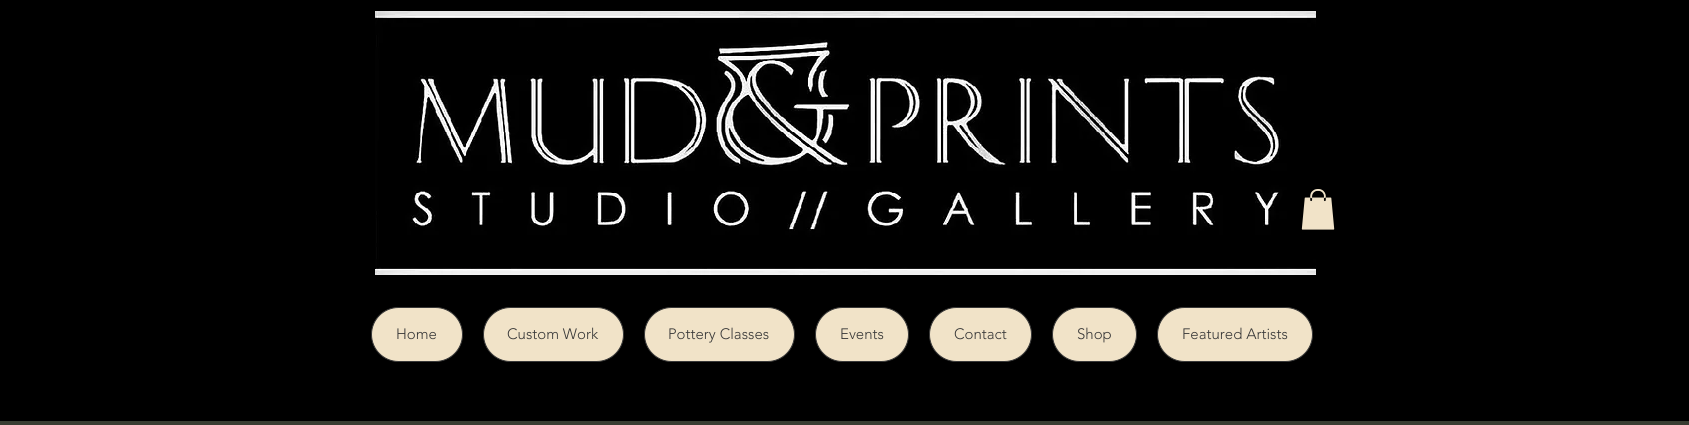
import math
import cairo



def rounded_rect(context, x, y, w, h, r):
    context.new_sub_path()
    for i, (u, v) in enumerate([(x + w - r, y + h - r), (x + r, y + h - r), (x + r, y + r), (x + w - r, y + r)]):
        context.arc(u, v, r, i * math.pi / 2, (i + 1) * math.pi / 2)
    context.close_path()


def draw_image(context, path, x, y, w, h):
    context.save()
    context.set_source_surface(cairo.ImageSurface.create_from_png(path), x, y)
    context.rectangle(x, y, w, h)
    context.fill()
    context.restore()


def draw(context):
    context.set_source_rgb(0, 0, 0)
    context.paint()
    draw_image(context, "images/1.png", 375, 11, 941, 264)
    draw_image(context, "images/2.png", 1301, 189, 34, 41)
    context.set_source_rgb(241 / 255, 227 / 255, 200 / 255)
    rounded_rect(context, 371.5, 307.5, 91, 54, 27)
    context.fill_preserve()
    context.set_source_rgb(56 / 255, 56 / 255, 56 / 255)
    context.set_line_width(1)
    context.stroke()
    context.set_source_rgb(241 / 255, 227 / 255, 200 / 255)
    rounded_rect(context, 483.5, 307.5, 140, 54, 27)
    context.fill_preserve()
    context.set_source_rgb(56 / 255, 56 / 255, 56 / 255)
    context.stroke()
    context.set_source_rgb(241 / 255, 227 / 255, 200 / 255)
    rounded_rect(context, 644.5, 307.5, 150, 54, 27)
    context.fill_preserve()
    context.set_source_rgb(56 / 255, 56 / 255, 56 / 255)
    context.stroke()
    context.set_source_rgb(241 / 255, 227 / 255, 200 / 255)
    rounded_rect(context, 815.5, 307.5, 93, 54, 27)
    context.fill_preserve()
    context.set_source_rgb(56 / 255, 56 / 255, 56 / 255)
    context.stroke()
    context.set_source_rgb(241 / 255, 227 / 255, 200 / 255)
    rounded_rect(context, 929.5, 307.5, 102, 54, 27)
    context.fill_preserve()
    context.set_source_rgb(56 / 255, 56 / 255, 56 / 255)
    context.stroke()
    context.set_source_rgb(241 / 255, 227 / 255, 200 / 255)
    rounded_rect(context, 1052.5, 307.5, 84, 54, 27)
    context.fill_preserve()
    context.set_source_rgb(56 / 255, 56 / 255, 56 / 255)
    context.stroke()
    context.set_source_rgb(241 / 255, 227 / 255, 200 / 255)
    rounded_rect(context, 1157.5, 307.5, 155, 54, 27)
    context.fill_preserve()
    context.set_source_rgb(56 / 255, 56 / 255, 56 / 255)
    context.stroke()
    context.set_source_rgb(57 / 255, 61 / 255, 50 / 255)
    context.rectangle(0, 421, 1689, 4)
    context.fill()
    context.select_font_face("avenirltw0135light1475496 Light")
    context.set_font_size(15)
    context.set_source_rgb(56 / 255, 56 / 255, 56 / 255)
    context.move_to(396, 339)
    context.show_text("Home")
    context.move_to(507, 339)
    context.show_text("Custom Work")
    context.move_to(668, 339)
    context.show_text("Pottery Classes")
    context.move_to(840, 339)
    context.show_text("Events")
    context.move_to(954, 339)
    context.show_text("Contact")
    context.move_to(1077, 339)
    context.show_text("Shop")
    context.move_to(1182, 339)
    context.show_text("Featured Artists")


surface = cairo.ImageSurface(cairo.Format.RGB24, 1689, 425)
context = cairo.Context(surface)
options = cairo.FontOptions()
options.set_hint_metrics(cairo.HintMetrics.OFF)
options.set_hint_style(cairo.HintStyle.NONE)
context.set_font_options(options)
context.set_miter_limit(4)
draw(context)
surface.write_to_png("out.png")
